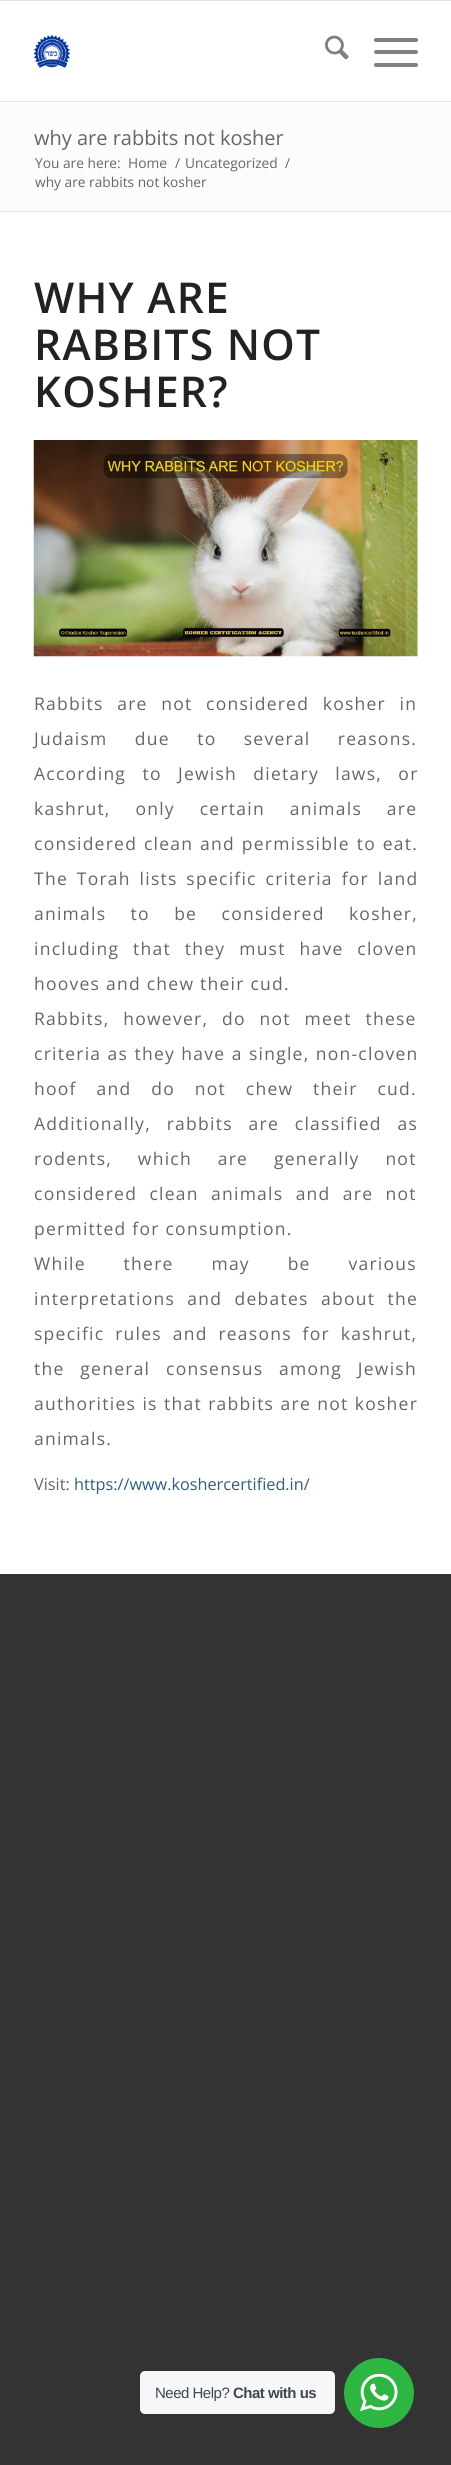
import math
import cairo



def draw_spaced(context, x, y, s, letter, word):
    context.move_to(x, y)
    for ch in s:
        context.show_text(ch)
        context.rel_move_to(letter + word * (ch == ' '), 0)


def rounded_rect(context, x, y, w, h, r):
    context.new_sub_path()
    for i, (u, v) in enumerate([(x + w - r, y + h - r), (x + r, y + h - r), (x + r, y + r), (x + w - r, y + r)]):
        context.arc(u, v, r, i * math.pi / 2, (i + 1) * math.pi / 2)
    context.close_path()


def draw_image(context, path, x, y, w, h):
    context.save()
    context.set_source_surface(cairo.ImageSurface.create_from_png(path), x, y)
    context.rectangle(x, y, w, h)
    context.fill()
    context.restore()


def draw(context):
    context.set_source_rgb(51 / 255, 51 / 255, 51 / 255)
    context.paint()
    context.set_source_rgb(1, 1, 1)
    context.rectangle(0, 1, 451, 1573)
    context.fill()
    context.set_source_rgb(225 / 255, 225 / 255, 225 / 255)
    context.rectangle(0, 0, 451, 1)
    context.fill()
    context.rectangle(0, 101, 451, 1)
    context.fill()
    draw_image(context, "images/1.png", 33, 35, 37, 33)
    draw_image(context, "images/2.png", 325, 35, 24, 25)
    context.set_source_rgb(128 / 255, 128 / 255, 128 / 255)
    rounded_rect(context, 374, 50, 44, 4, 2)
    context.fill()
    rounded_rect(context, 374, 38, 44, 4, 2)
    context.fill()
    rounded_rect(context, 374, 63, 44, 4, 2)
    context.fill()
    context.set_source_rgb(252 / 255, 252 / 255, 252 / 255)
    context.rectangle(0, 103, 451, 108)
    context.fill()
    context.set_source_rgb(225 / 255, 225 / 255, 225 / 255)
    context.rectangle(0, 211, 451, 1)
    context.fill()
    draw_image(context, "images/3.png", 33, 440, 385, 217)
    context.set_source_rgb(245 / 255, 247 / 255, 249 / 255)
    rounded_rect(context, 140, 2371, 195, 43, 5)
    context.fill()
    context.set_source_rgb(45 / 255, 183 / 255, 66 / 255)
    context.arc(379, 2393, 35, 0, 2 * math.pi)
    context.fill()
    draw_image(context, "images/4.png", 360, 2374, 38, 37)
    context.select_font_face("Open Sans")
    context.set_font_size(20)
    context.set_source_rgb(102 / 255, 102 / 255, 102 / 255)
    context.move_to(34, 145)
    context.show_text("why are rabbits not kosher")
    context.set_font_size(13.75)
    context.move_to(35, 168)
    context.show_text("You are here:")
    context.move_to(128, 168)
    context.show_text("Home")
    context.move_to(175, 168)
    context.show_text("/")
    context.move_to(185, 168)
    context.show_text("Uncategorized")
    context.move_to(285, 168)
    context.show_text("/")
    context.move_to(35, 187)
    context.show_text("why are rabbits not kosher")
    context.select_font_face("Open Sans SemiBold")
    context.set_font_size(42.5)
    context.set_source_rgb(34 / 255, 34 / 255, 34 / 255)
    draw_spaced(context, 34, 313, "WHY ARE", 1.25, 0)
    draw_spaced(context, 34, 360, "RABBITS NOT", 1.25, 0)
    draw_spaced(context, 34, 407, "KOSHER?", 1.25, 0)
    context.select_font_face("Open Sans")
    context.set_font_size(17.5)
    context.set_source_rgb(102 / 255, 102 / 255, 102 / 255)
    draw_spaced(context, 34, 710, "Rabbits are not considered kosher in", 1.25, 7.75)
    draw_spaced(context, 34, 745, "Judaism due to several reasons.", 1.25, 21.5)
    draw_spaced(context, 34, 780, "According to Jewish dietary laws, or", 1.25, 10.5)
    draw_spaced(context, 34, 815, "kashrut, only certain animals are", 1.25, 19)
    draw_spaced(context, 34, 850, "considered clean and permissible to eat.", 1.25, 1)
    draw_spaced(context, 34, 885, "The Torah lists specific criteria for land", 1.25, 3)
    draw_spaced(context, 34, 920, "animals to be considered kosher,", 1.25, 18.5)
    draw_spaced(context, 34, 955, "including that they must have cloven", 1.25, 8)
    draw_spaced(context, 34, 990, "hooves and chew their cud.", 1.25, 0)
    draw_spaced(context, 34, 1025, "Rabbits, however, do not meet these", 1.25, 8)
    draw_spaced(context, 34, 1060, "criteria as they have a single, non-cloven", 1.25, 0.5)
    draw_spaced(context, 34, 1095, "hoof and do not chew their cud.", 1.25, 14)
    draw_spaced(context, 34, 1130, "Additionally, rabbits are classified as", 1.25, 10)
    draw_spaced(context, 34, 1165, "rodents, which are generally not", 1.25, 20)
    draw_spaced(context, 34, 1200, "considered clean animals and are not", 1.25, 6.5)
    draw_spaced(context, 34, 1235, "permitted for consumption.", 1.25, 0)
    draw_spaced(context, 34, 1270, "While there may be various", 1.25, 32)
    draw_spaced(context, 34, 1305, "interpretations and debates about the", 1.25, 6.5)
    draw_spaced(context, 34, 1340, "specific rules and reasons for kashrut,", 1.25, 5)
    draw_spaced(context, 34, 1375, "the general consensus among Jewish", 1.25, 10)
    draw_spaced(context, 34, 1410, "authorities is that rabbits are not kosher", 1.25, 0.5)
    draw_spaced(context, 34, 1445, "animals.", 1.25, 0)
    context.set_font_size(16.25)
    context.move_to(34, 1490)
    context.show_text("Visit:")
    context.set_source_rgb(45 / 255, 92 / 255, 136 / 255)
    context.move_to(74, 1490)
    context.show_text("https://www.koshercertified.in/")
    context.select_font_face("Liberation Sans")
    context.set_font_size(15)
    context.set_source_rgb(67 / 255, 71 / 255, 78 / 255)
    draw_spaced(context, 155, 2398, "Need Help?", -0.5, 0)
    context.select_font_face("Liberation Sans", cairo.FontSlant.NORMAL, cairo.FontWeight.BOLD)
    draw_spaced(context, 233, 2398, "Chat with us", -0.5, 0)


surface = cairo.ImageSurface(cairo.Format.RGB24, 451, 2465)
context = cairo.Context(surface)
options = cairo.FontOptions()
options.set_hint_metrics(cairo.HintMetrics.OFF)
options.set_hint_style(cairo.HintStyle.NONE)
context.set_font_options(options)
context.set_miter_limit(4)
draw(context)
surface.write_to_png("out.png")
